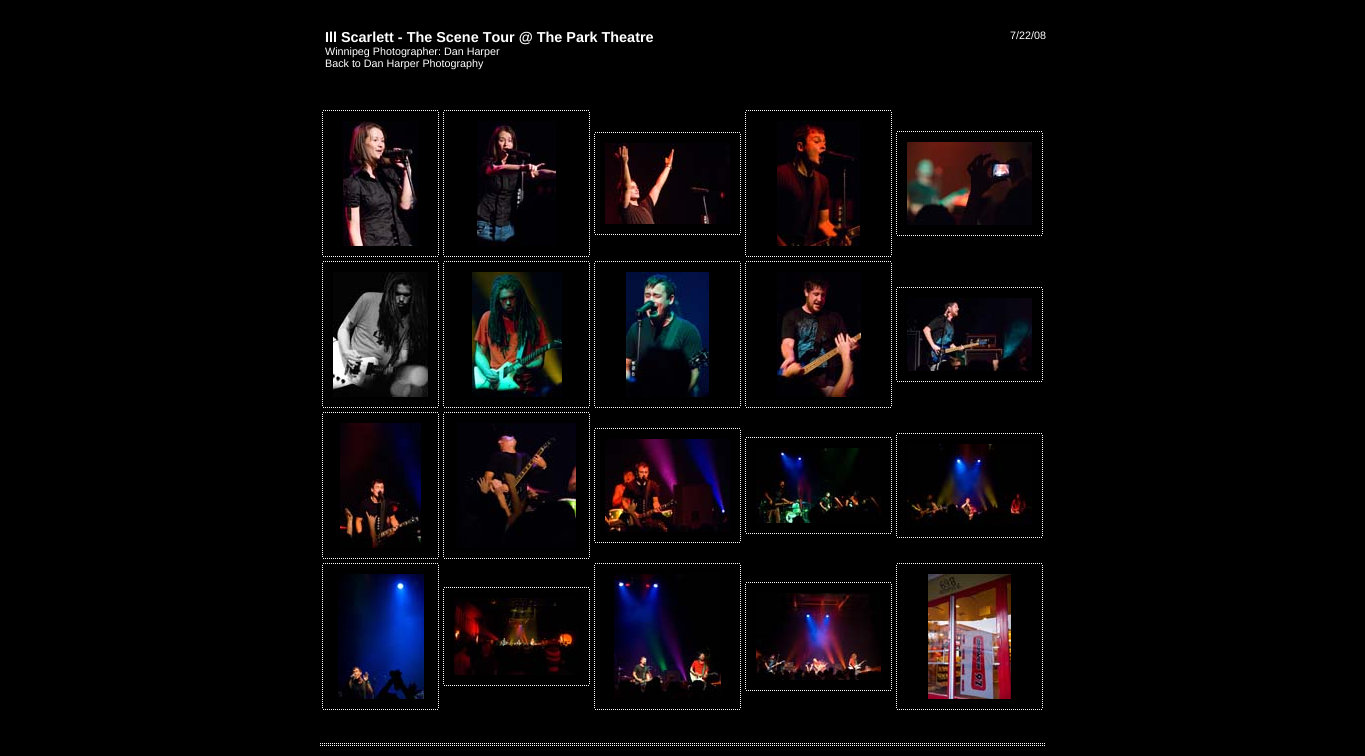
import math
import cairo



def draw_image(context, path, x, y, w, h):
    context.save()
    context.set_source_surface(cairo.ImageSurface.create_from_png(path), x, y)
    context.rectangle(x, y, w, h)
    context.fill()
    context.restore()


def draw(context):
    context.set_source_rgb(0, 0, 0)
    context.paint()
    draw_image(context, "images/1.png", 323, 110, 115, 1)
    draw_image(context, "images/2.png", 322, 112, 1, 143)
    draw_image(context, "images/3.png", 343, 121, 75, 125)
    draw_image(context, "images/2.png", 438, 112, 1, 143)
    draw_image(context, "images/1.png", 323, 256, 115, 1)
    draw_image(context, "images/4.png", 444, 110, 145, 1)
    draw_image(context, "images/2.png", 443, 112, 1, 143)
    draw_image(context, "images/5.png", 477, 121, 79, 125)
    draw_image(context, "images/2.png", 589, 112, 1, 143)
    draw_image(context, "images/4.png", 444, 256, 145, 1)
    draw_image(context, "images/4.png", 595, 132, 145, 1)
    draw_image(context, "images/6.png", 594, 134, 1, 99)
    draw_image(context, "images/7.png", 605, 143, 125, 81)
    draw_image(context, "images/6.png", 740, 134, 1, 99)
    draw_image(context, "images/4.png", 595, 234, 145, 1)
    draw_image(context, "images/4.png", 746, 110, 145, 1)
    draw_image(context, "images/2.png", 745, 112, 1, 143)
    draw_image(context, "images/8.png", 777, 121, 83, 125)
    draw_image(context, "images/2.png", 891, 112, 1, 143)
    draw_image(context, "images/4.png", 746, 256, 145, 1)
    draw_image(context, "images/4.png", 897, 131, 145, 1)
    draw_image(context, "images/9.png", 896, 133, 1, 101)
    draw_image(context, "images/10.png", 907, 142, 125, 83)
    draw_image(context, "images/9.png", 1042, 133, 1, 101)
    draw_image(context, "images/4.png", 897, 235, 145, 1)
    draw_image(context, "images/1.png", 323, 261, 115, 1)
    draw_image(context, "images/2.png", 322, 263, 1, 143)
    draw_image(context, "images/11.png", 333, 272, 95, 125)
    draw_image(context, "images/2.png", 438, 263, 1, 143)
    draw_image(context, "images/1.png", 323, 407, 115, 1)
    draw_image(context, "images/4.png", 444, 261, 145, 1)
    draw_image(context, "images/2.png", 443, 263, 1, 143)
    draw_image(context, "images/12.png", 472, 272, 90, 125)
    draw_image(context, "images/2.png", 589, 263, 1, 143)
    draw_image(context, "images/4.png", 444, 407, 145, 1)
    draw_image(context, "images/4.png", 595, 261, 145, 1)
    draw_image(context, "images/2.png", 594, 263, 1, 143)
    draw_image(context, "images/13.png", 626, 272, 83, 125)
    draw_image(context, "images/2.png", 740, 263, 1, 143)
    draw_image(context, "images/4.png", 595, 407, 145, 1)
    draw_image(context, "images/4.png", 746, 261, 145, 1)
    draw_image(context, "images/2.png", 745, 263, 1, 143)
    draw_image(context, "images/14.png", 777, 272, 84, 125)
    draw_image(context, "images/2.png", 891, 263, 1, 143)
    draw_image(context, "images/4.png", 746, 407, 145, 1)
    draw_image(context, "images/4.png", 897, 287, 145, 1)
    draw_image(context, "images/15.png", 896, 289, 1, 91)
    draw_image(context, "images/16.png", 907, 298, 125, 73)
    draw_image(context, "images/15.png", 1042, 289, 1, 91)
    draw_image(context, "images/4.png", 897, 381, 145, 1)
    draw_image(context, "images/1.png", 323, 412, 115, 1)
    draw_image(context, "images/2.png", 322, 414, 1, 143)
    draw_image(context, "images/17.png", 340, 423, 81, 125)
    draw_image(context, "images/2.png", 438, 414, 1, 143)
    draw_image(context, "images/1.png", 323, 558, 115, 1)
    draw_image(context, "images/4.png", 444, 412, 145, 1)
    draw_image(context, "images/2.png", 443, 414, 1, 143)
    draw_image(context, "images/18.png", 457, 423, 119, 125)
    draw_image(context, "images/2.png", 589, 414, 1, 143)
    draw_image(context, "images/4.png", 444, 558, 145, 1)
    draw_image(context, "images/4.png", 595, 428, 145, 1)
    draw_image(context, "images/19.png", 594, 430, 1, 111)
    draw_image(context, "images/20.png", 605, 439, 125, 93)
    draw_image(context, "images/19.png", 740, 430, 1, 111)
    draw_image(context, "images/4.png", 595, 542, 145, 1)
    draw_image(context, "images/4.png", 746, 437, 145, 1)
    draw_image(context, "images/21.png", 745, 439, 1, 93)
    draw_image(context, "images/22.png", 756, 448, 125, 75)
    draw_image(context, "images/21.png", 891, 439, 1, 93)
    draw_image(context, "images/4.png", 746, 533, 145, 1)
    draw_image(context, "images/4.png", 897, 433, 145, 1)
    draw_image(context, "images/9.png", 896, 435, 1, 101)
    draw_image(context, "images/23.png", 907, 444, 125, 81)
    draw_image(context, "images/9.png", 1042, 435, 1, 101)
    draw_image(context, "images/4.png", 897, 537, 145, 1)
    draw_image(context, "images/1.png", 323, 563, 115, 1)
    draw_image(context, "images/2.png", 322, 565, 1, 143)
    draw_image(context, "images/24.png", 338, 574, 86, 125)
    draw_image(context, "images/2.png", 438, 565, 1, 143)
    draw_image(context, "images/1.png", 323, 709, 115, 1)
    draw_image(context, "images/4.png", 444, 587, 145, 1)
    draw_image(context, "images/25.png", 443, 589, 1, 95)
    draw_image(context, "images/26.png", 454, 598, 125, 77)
    draw_image(context, "images/25.png", 589, 589, 1, 95)
    draw_image(context, "images/4.png", 444, 685, 145, 1)
    draw_image(context, "images/4.png", 595, 563, 145, 1)
    draw_image(context, "images/2.png", 594, 565, 1, 143)
    draw_image(context, "images/27.png", 614, 574, 107, 125)
    draw_image(context, "images/2.png", 740, 565, 1, 143)
    draw_image(context, "images/4.png", 595, 709, 145, 1)
    draw_image(context, "images/4.png", 746, 582, 145, 1)
    draw_image(context, "images/28.png", 745, 584, 1, 105)
    draw_image(context, "images/29.png", 756, 593, 125, 87)
    draw_image(context, "images/28.png", 891, 584, 1, 105)
    draw_image(context, "images/4.png", 746, 690, 145, 1)
    draw_image(context, "images/4.png", 897, 563, 145, 1)
    draw_image(context, "images/2.png", 896, 565, 1, 143)
    draw_image(context, "images/30.png", 928, 574, 83, 125)
    draw_image(context, "images/2.png", 1042, 565, 1, 143)
    draw_image(context, "images/4.png", 897, 709, 145, 1)
    draw_image(context, "images/31.png", 320, 743, 725, 1)
    draw_image(context, "images/31.png", 320, 745, 725, 1)
    context.select_font_face("Liberation Sans", cairo.FontSlant.NORMAL, cairo.FontWeight.BOLD)
    context.set_font_size(14.4)
    context.set_source_rgb(1, 1, 1)
    context.move_to(325, 42)
    context.show_text("Ill Scarlett - The Scene Tour @ The Park Theatre")
    context.select_font_face("Liberation Sans")
    context.set_font_size(10.75)
    context.move_to(325, 55)
    context.show_text("Winnipeg Photographer: Dan Harper")
    context.move_to(325, 67)
    context.show_text("Back to Dan Harper Photography")
    context.move_to(1010, 39)
    context.show_text("7/22/08")


surface = cairo.ImageSurface(cairo.Format.RGB24, 1365, 756)
context = cairo.Context(surface)
options = cairo.FontOptions()
options.set_hint_metrics(cairo.HintMetrics.OFF)
options.set_hint_style(cairo.HintStyle.NONE)
context.set_font_options(options)
context.set_miter_limit(4)
draw(context)
surface.write_to_png("out.png")
